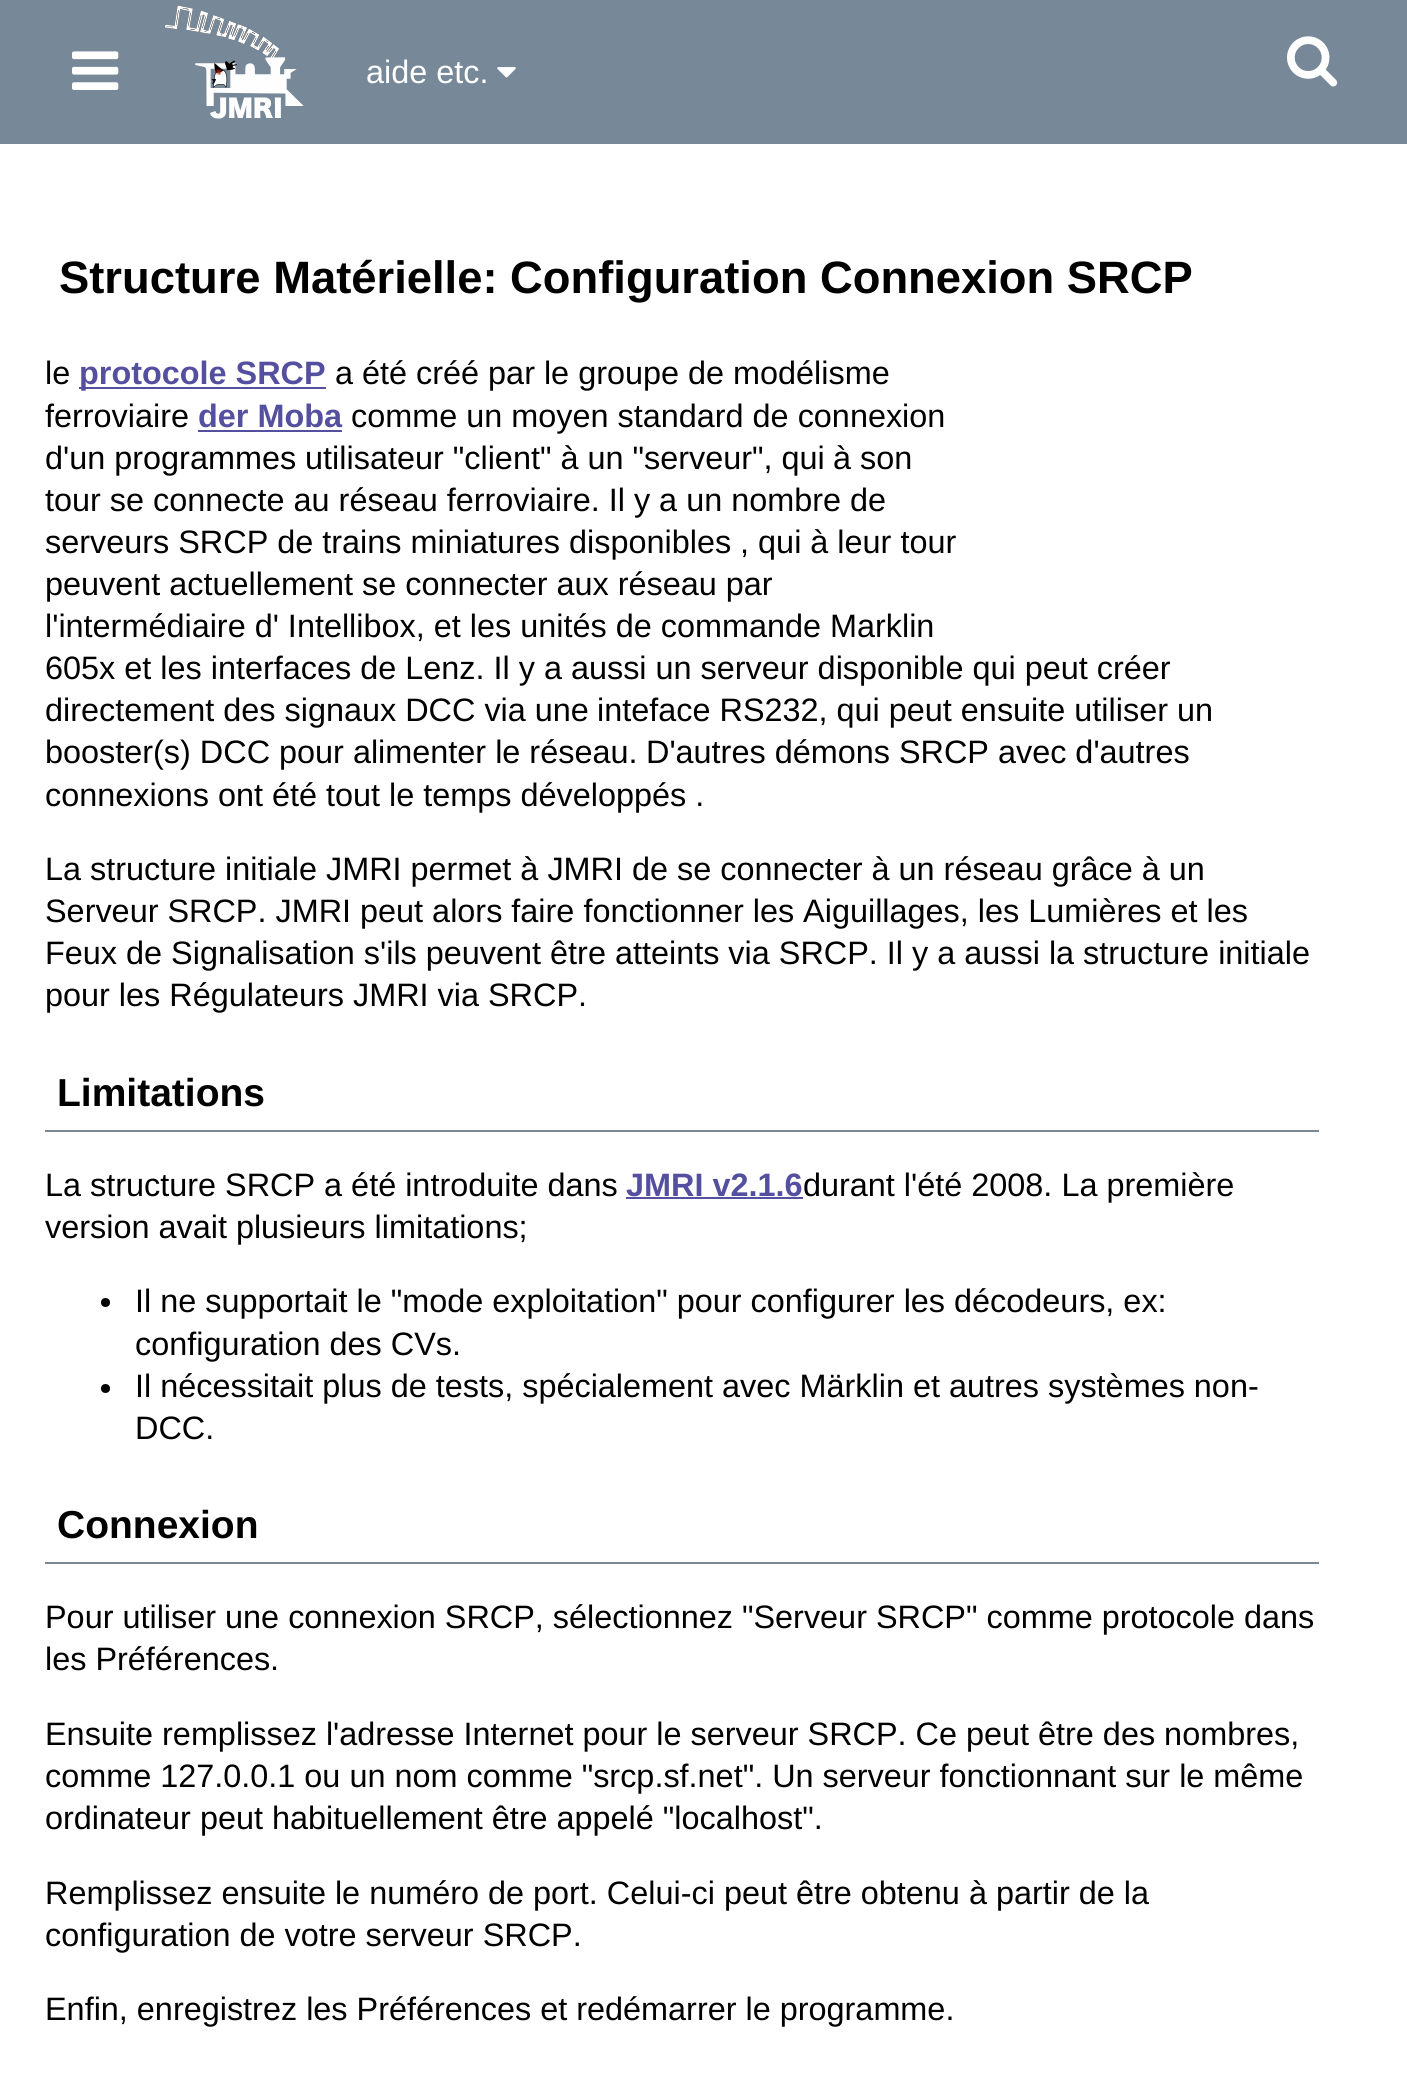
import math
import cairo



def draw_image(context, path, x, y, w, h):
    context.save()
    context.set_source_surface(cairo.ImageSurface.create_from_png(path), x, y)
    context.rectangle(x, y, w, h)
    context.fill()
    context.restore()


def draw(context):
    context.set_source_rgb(1, 1, 1)
    context.paint()
    context.set_source_rgb(119 / 255, 136 / 255, 153 / 255)
    context.rectangle(0, 0, 1407, 144)
    context.fill()
    draw_image(context, "images/1.png", 72, 51, 47, 39)
    draw_image(context, "images/2.png", 165, 5, 139, 114)
    draw_image(context, "images/3.png", 497, 67, 19, 11)
    draw_image(context, "images/4.png", 1287, 36, 51, 51)
    context.set_source_rgb(85 / 255, 79 / 255, 160 / 255)
    context.rectangle(79, 387, 247, 2)
    context.fill()
    context.rectangle(198, 430, 144, 2)
    context.fill()
    context.set_source_rgb(119 / 255, 136 / 255, 153 / 255)
    context.rectangle(45, 1130, 1274, 2)
    context.fill()
    context.set_source_rgb(85 / 255, 79 / 255, 160 / 255)
    context.rectangle(626, 1197, 177, 2)
    context.fill()
    context.set_source_rgb(0, 0, 0)
    context.arc(105.5, 1302.5, 4.5, 0, 2 * math.pi)
    context.fill()
    context.arc(105.5, 1388.5, 4.5, 0, 2 * math.pi)
    context.fill()
    context.set_source_rgb(119 / 255, 136 / 255, 153 / 255)
    context.rectangle(45, 1562, 1274, 2)
    context.fill()
    context.select_font_face("Liberation Sans")
    context.set_font_size(32.4)
    context.set_source_rgb(1, 1, 1)
    context.move_to(366, 83)
    context.show_text("aide etc.")
    context.select_font_face("Liberation Sans", cairo.FontSlant.NORMAL, cairo.FontWeight.BOLD)
    context.set_font_size(45.35)
    context.set_source_rgb(0, 0, 0)
    context.move_to(59, 293)
    context.show_text("Structure Matérielle: Configuration Connexion SRCP")
    context.select_font_face("Liberation Sans")
    context.set_font_size(32.4)
    context.move_to(45, 384)
    context.show_text("le")
    context.select_font_face("Liberation Sans", cairo.FontSlant.NORMAL, cairo.FontWeight.BOLD)
    context.set_source_rgb(85 / 255, 79 / 255, 160 / 255)
    context.move_to(79, 384)
    context.show_text("protocole SRCP")
    context.select_font_face("Liberation Sans")
    context.set_source_rgb(0, 0, 0)
    context.move_to(335, 384)
    context.show_text("a été créé par le groupe de modélisme")
    context.move_to(45, 427)
    context.show_text("ferroviaire")
    context.select_font_face("Liberation Sans", cairo.FontSlant.NORMAL, cairo.FontWeight.BOLD)
    context.set_source_rgb(85 / 255, 79 / 255, 160 / 255)
    context.move_to(198, 427)
    context.show_text("der Moba")
    context.select_font_face("Liberation Sans")
    context.set_source_rgb(0, 0, 0)
    context.move_to(351, 427)
    context.show_text("comme un moyen standard de connexion")
    context.move_to(45, 469)
    context.show_text("d'un programmes utilisateur \"client\" à un \"serveur\", qui")
    context.move_to(833, 469)
    context.show_text("à son")
    context.move_to(45, 511)
    context.show_text("tour se connecte au réseau ferroviaire. Il y a un nombre de")
    context.move_to(45, 553)
    context.show_text("serveurs SRCP de trains miniatures disponibles , qui à leur tour")
    context.move_to(45, 595)
    context.show_text("peuvent actuellement se connecter aux réseau par")
    context.move_to(45, 637)
    context.show_text("l'intermédiaire d' Intellibox, et les unités de commande Marklin")
    context.move_to(45, 679)
    context.show_text("605x et les interfaces de Lenz. Il y a aussi un serveur disponible qui peut créer")
    context.move_to(45, 721)
    context.show_text("directement des signaux DCC via une")
    context.move_to(597, 721)
    context.show_text("inteface RS232, qui peut ensuite utiliser un")
    context.move_to(45, 763)
    context.show_text("booster(s) DCC pour alimenter le réseau.")
    context.move_to(646, 763)
    context.show_text("D'autres démons SRCP avec d'autres")
    context.move_to(45, 806)
    context.show_text("connexions ont été tout le temps développés .")
    context.move_to(45, 880)
    context.show_text("La structure initiale JMRI permet à JMRI de se connecter à un réseau grâce à un")
    context.move_to(45, 922)
    context.show_text("Serveur SRCP. JMRI peut alors faire fonctionner les Aiguillages, les Lumières et les")
    context.move_to(45, 964)
    context.show_text("Feux de Signalisation s'ils peuvent être atteints via SRCP. Il y a aussi la structure initiale")
    context.move_to(45, 1006)
    context.show_text("pour les Régulateurs JMRI via SRCP.")
    context.select_font_face("Liberation Sans", cairo.FontSlant.NORMAL, cairo.FontWeight.BOLD)
    context.set_font_size(39)
    context.move_to(57, 1106)
    context.show_text("Limitations")
    context.select_font_face("Liberation Sans")
    context.set_font_size(32.4)
    context.move_to(45, 1196)
    context.show_text("La structure SRCP a été introduite dans")
    context.select_font_face("Liberation Sans", cairo.FontSlant.NORMAL, cairo.FontWeight.BOLD)
    context.set_source_rgb(85 / 255, 79 / 255, 160 / 255)
    context.move_to(626, 1196)
    context.show_text("JMRI v2.1.6")
    context.select_font_face("Liberation Sans")
    context.set_source_rgb(0, 0, 0)
    context.move_to(803, 1196)
    context.show_text("durant l'été 2008. La première")
    context.move_to(45, 1238)
    context.show_text("version avait plusieurs limitations;")
    context.move_to(135, 1312)
    context.show_text("Il ne supportait le \"mode exploitation\" pour configurer les décodeurs, ex:")
    context.move_to(135, 1355)
    context.show_text("configuration des CVs.")
    context.move_to(135, 1397)
    context.show_text("Il nécessitait plus de tests, spécialement avec Märklin et autres systèmes non-")
    context.move_to(135, 1439)
    context.show_text("DCC.")
    context.select_font_face("Liberation Sans", cairo.FontSlant.NORMAL, cairo.FontWeight.BOLD)
    context.set_font_size(39)
    context.move_to(57, 1538)
    context.show_text("Connexion")
    context.select_font_face("Liberation Sans")
    context.set_font_size(32.4)
    context.move_to(45, 1628)
    context.show_text("Pour utiliser une connexion SRCP, sélectionnez \"Serveur SRCP\" comme protocole dans")
    context.move_to(45, 1670)
    context.show_text("les Préférences.")
    context.move_to(45, 1745)
    context.show_text("Ensuite remplissez l'adresse Internet pour le serveur SRCP. Ce peut être des nombres,")
    context.move_to(45, 1787)
    context.show_text("comme 127.0.0.1 ou un nom comme \"srcp.sf.net\". Un serveur fonctionnant sur le même")
    context.move_to(45, 1829)
    context.show_text("ordinateur peut habituellement être appelé \"localhost\".")
    context.move_to(45, 1904)
    context.show_text("Remplissez ensuite le numéro de port. Celui-ci peut être obtenu à partir de la")
    context.move_to(45, 1946)
    context.show_text("configuration de votre serveur SRCP.")
    context.move_to(45, 2020)
    context.show_text("Enfin, enregistrez les Préférences et redémarrer le programme.")


surface = cairo.ImageSurface(cairo.Format.RGB24, 1407, 2089)
context = cairo.Context(surface)
options = cairo.FontOptions()
options.set_hint_metrics(cairo.HintMetrics.OFF)
options.set_hint_style(cairo.HintStyle.NONE)
context.set_font_options(options)
context.set_miter_limit(4)
draw(context)
surface.write_to_png("out.png")
